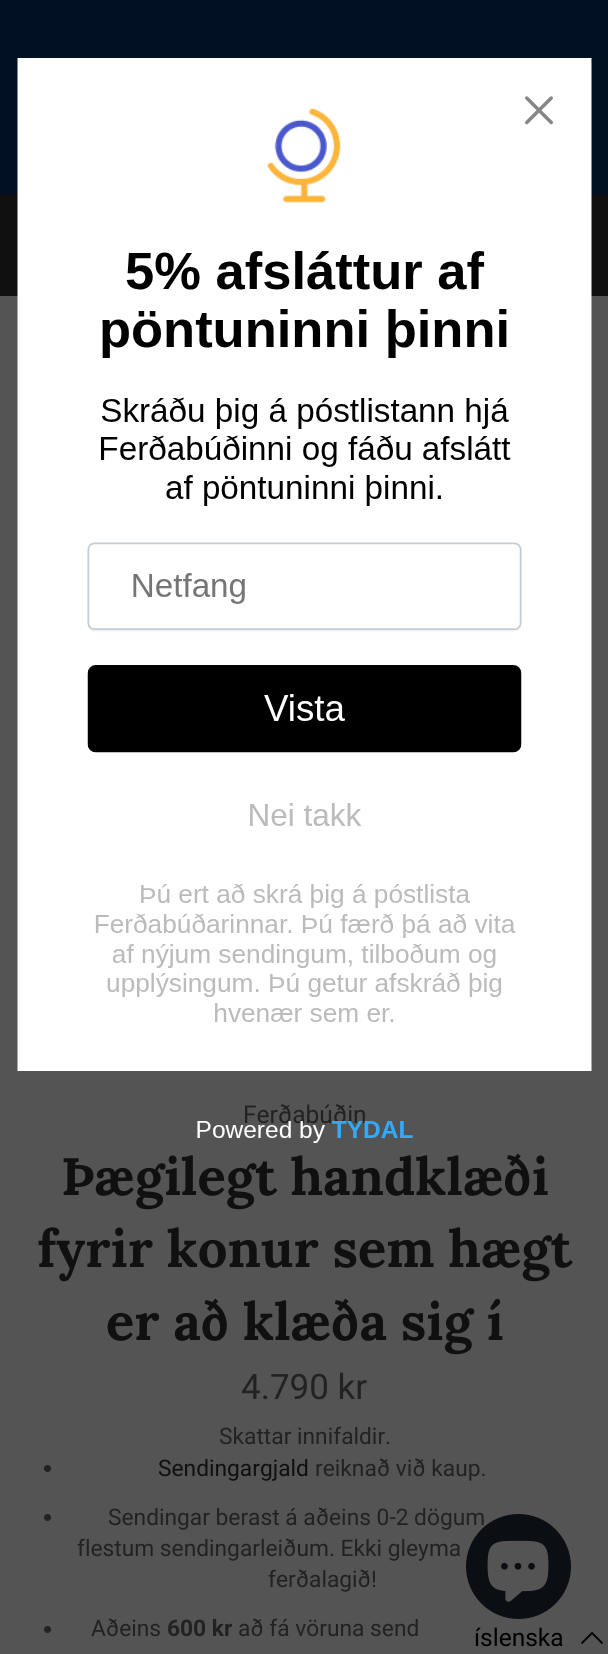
import math
import cairo



def draw_image(context, path, x, y, w, h):
    context.save()
    context.set_source_surface(cairo.ImageSurface.create_from_png(path), x, y)
    context.rectangle(x, y, w, h)
    context.fill()
    context.restore()


def draw(context):
    context.set_source_rgb(2 / 255, 49 / 255, 103 / 255)
    context.paint()
    context.set_source_rgb(50 / 255, 50 / 255, 50 / 255)
    context.rectangle(0, 194, 608, 102)
    context.fill()
    context.set_source_rgb(1, 1, 1)
    context.rectangle(0, 296, 608, 1358)
    context.fill()
    context.set_source_rgb(102 / 255, 102 / 255, 102 / 255)
    context.arc(47.5, 1468.5, 3.5, 0, 2 * math.pi)
    context.fill()
    context.arc(47.5, 1517.5, 3.5, 0, 2 * math.pi)
    context.fill()
    context.arc(47.5, 1629.5, 3.5, 0, 2 * math.pi)
    context.fill()
    context.new_path()
    context.move_to(602.5, 1643.5)
    context.line_to(592, 1633)
    context.line_to(581.5, 1643.5)
    context.set_source_rgb(0, 0, 0)
    context.set_line_width(1.8)
    context.stroke()
    context.select_font_face("Roboto")
    context.set_font_size(24.5)
    context.set_source_rgb(102 / 255, 102 / 255, 102 / 255)
    context.move_to(243, 1123)
    context.show_text("Ferðabúðin")
    context.select_font_face("Lora", cairo.FontSlant.NORMAL, cairo.FontWeight.BOLD)
    context.set_font_size(52.5)
    context.set_source_rgb(50 / 255, 50 / 255, 50 / 255)
    context.move_to(61, 1195)
    context.show_text("Þægilegt handklæði")
    context.move_to(37, 1267)
    context.show_text("fyrir konur sem hægt")
    context.move_to(106, 1340)
    context.show_text("er að klæða sig í")
    context.select_font_face("Roboto")
    context.set_font_size(35)
    context.set_source_rgb(102 / 255, 102 / 255, 102 / 255)
    context.move_to(241, 1399)
    context.show_text("4.790 kr")
    context.set_font_size(22.75)
    context.move_to(219, 1444)
    context.show_text("Skattar innifaldir.")
    context.set_source_rgb(50 / 255, 50 / 255, 50 / 255)
    context.move_to(158, 1476)
    context.show_text("Sendingargjald")
    context.set_source_rgb(102 / 255, 102 / 255, 102 / 255)
    context.move_to(315, 1476)
    context.show_text("reiknað við kaup.")
    context.move_to(108, 1525)
    context.show_text("Sendingar berast á aðeins 0-2 dögum")
    context.move_to(77, 1556)
    context.show_text("flestum sendingarleiðum. Ekki gleyma")
    context.move_to(268, 1587)
    context.show_text("ferðalagið!")
    context.move_to(91, 1636)
    context.show_text("Aðeins")
    context.select_font_face("Roboto", cairo.FontSlant.NORMAL, cairo.FontWeight.BOLD)
    context.move_to(167, 1636)
    context.show_text("600 kr")
    context.select_font_face("Roboto")
    context.move_to(238, 1636)
    context.show_text("að fá vöruna send")
    context.set_source_rgb(32 / 255, 42 / 255, 54 / 255)
    context.new_path()
    context.arc(518.5, 1566.5, 52.5, 0, 2 * math.pi)
    context.fill()
    draw_image(context, "images/2.png", 487, 1540, 62, 62)
    context.set_font_size(24.5)
    context.set_source_rgb(0, 0, 0)
    context.move_to(474, 1646)
    context.show_text("íslenska")
    draw_image(context, "images/1.png", 0, 0, 608, 1654)


surface = cairo.ImageSurface(cairo.Format.RGB24, 608, 1654)
context = cairo.Context(surface)
options = cairo.FontOptions()
options.set_hint_metrics(cairo.HintMetrics.OFF)
options.set_hint_style(cairo.HintStyle.NONE)
context.set_font_options(options)
context.set_miter_limit(4)
draw(context)
surface.write_to_png("out.png")
